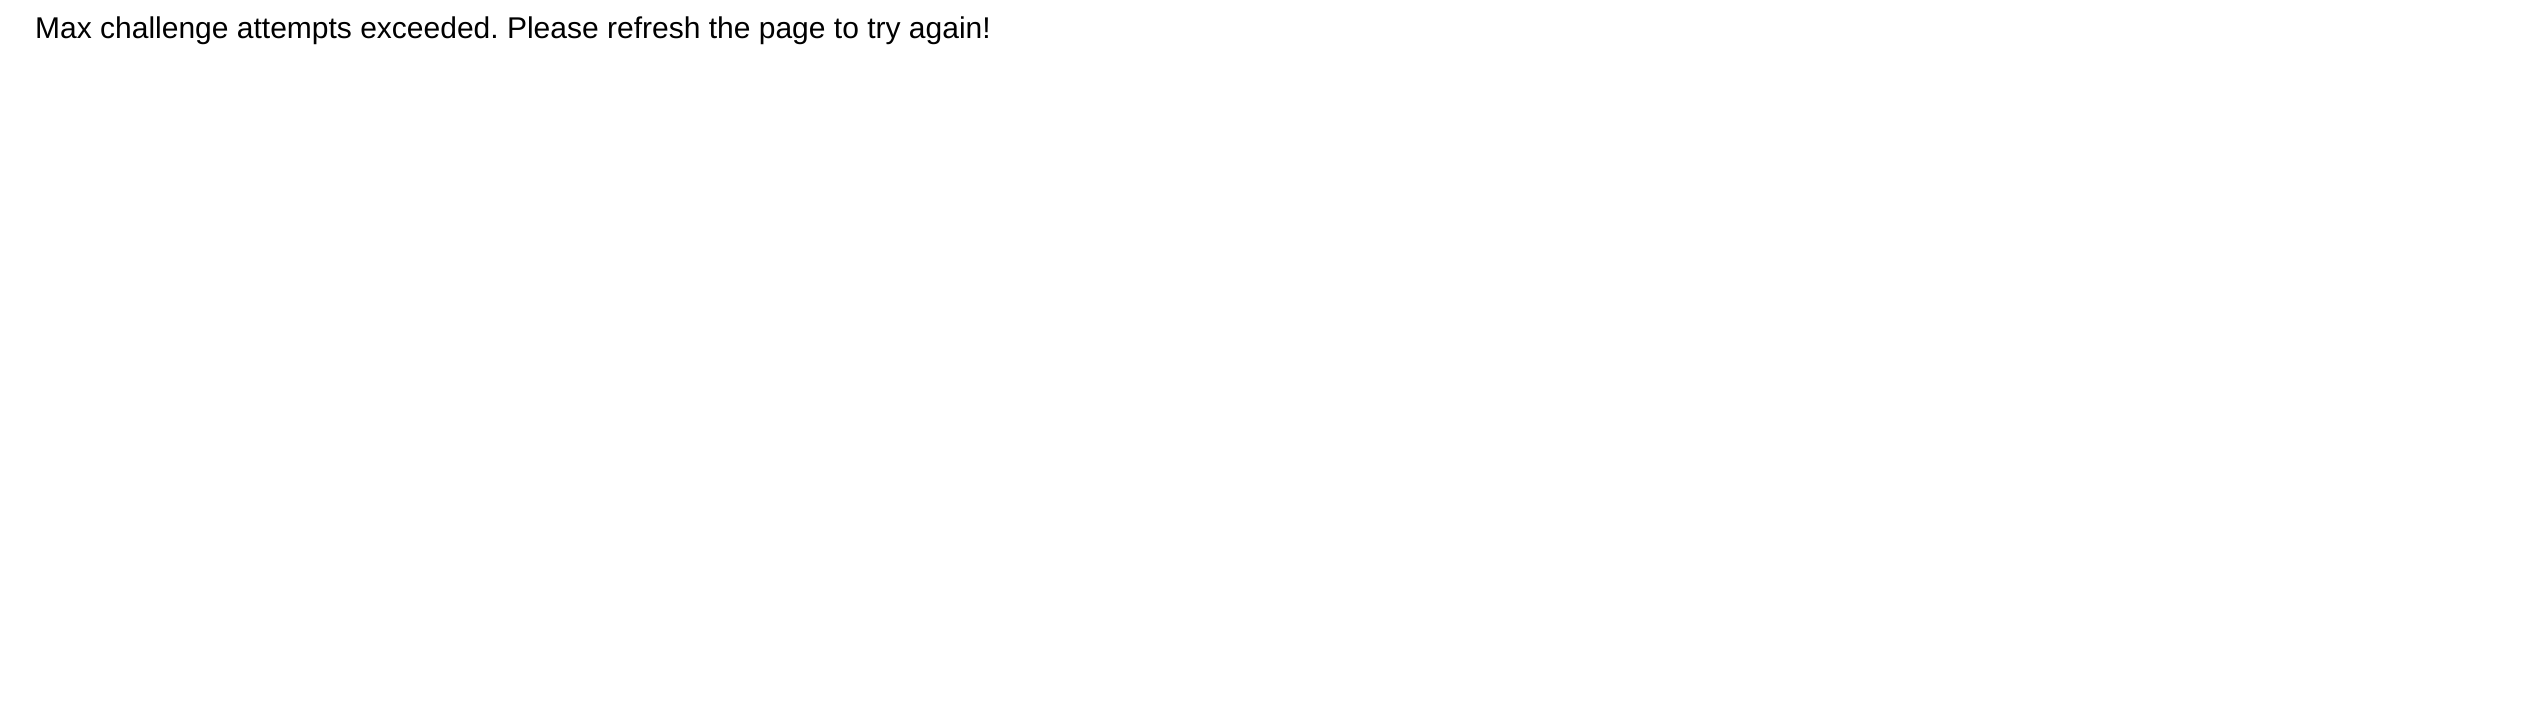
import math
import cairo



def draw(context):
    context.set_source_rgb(1, 1, 1)
    context.paint()
    context.select_font_face("Liberation Sans")
    context.set_font_size(30)
    context.set_source_rgb(0, 0, 0)
    context.move_to(35, 38)
    context.show_text("Max challenge attempts exceeded. Please refresh the page to try again!")


surface = cairo.ImageSurface(cairo.Format.RGB24, 2521, 703)
context = cairo.Context(surface)
options = cairo.FontOptions()
options.set_hint_metrics(cairo.HintMetrics.OFF)
options.set_hint_style(cairo.HintStyle.NONE)
context.set_font_options(options)
context.set_miter_limit(4)
draw(context)
surface.write_to_png("out.png")
